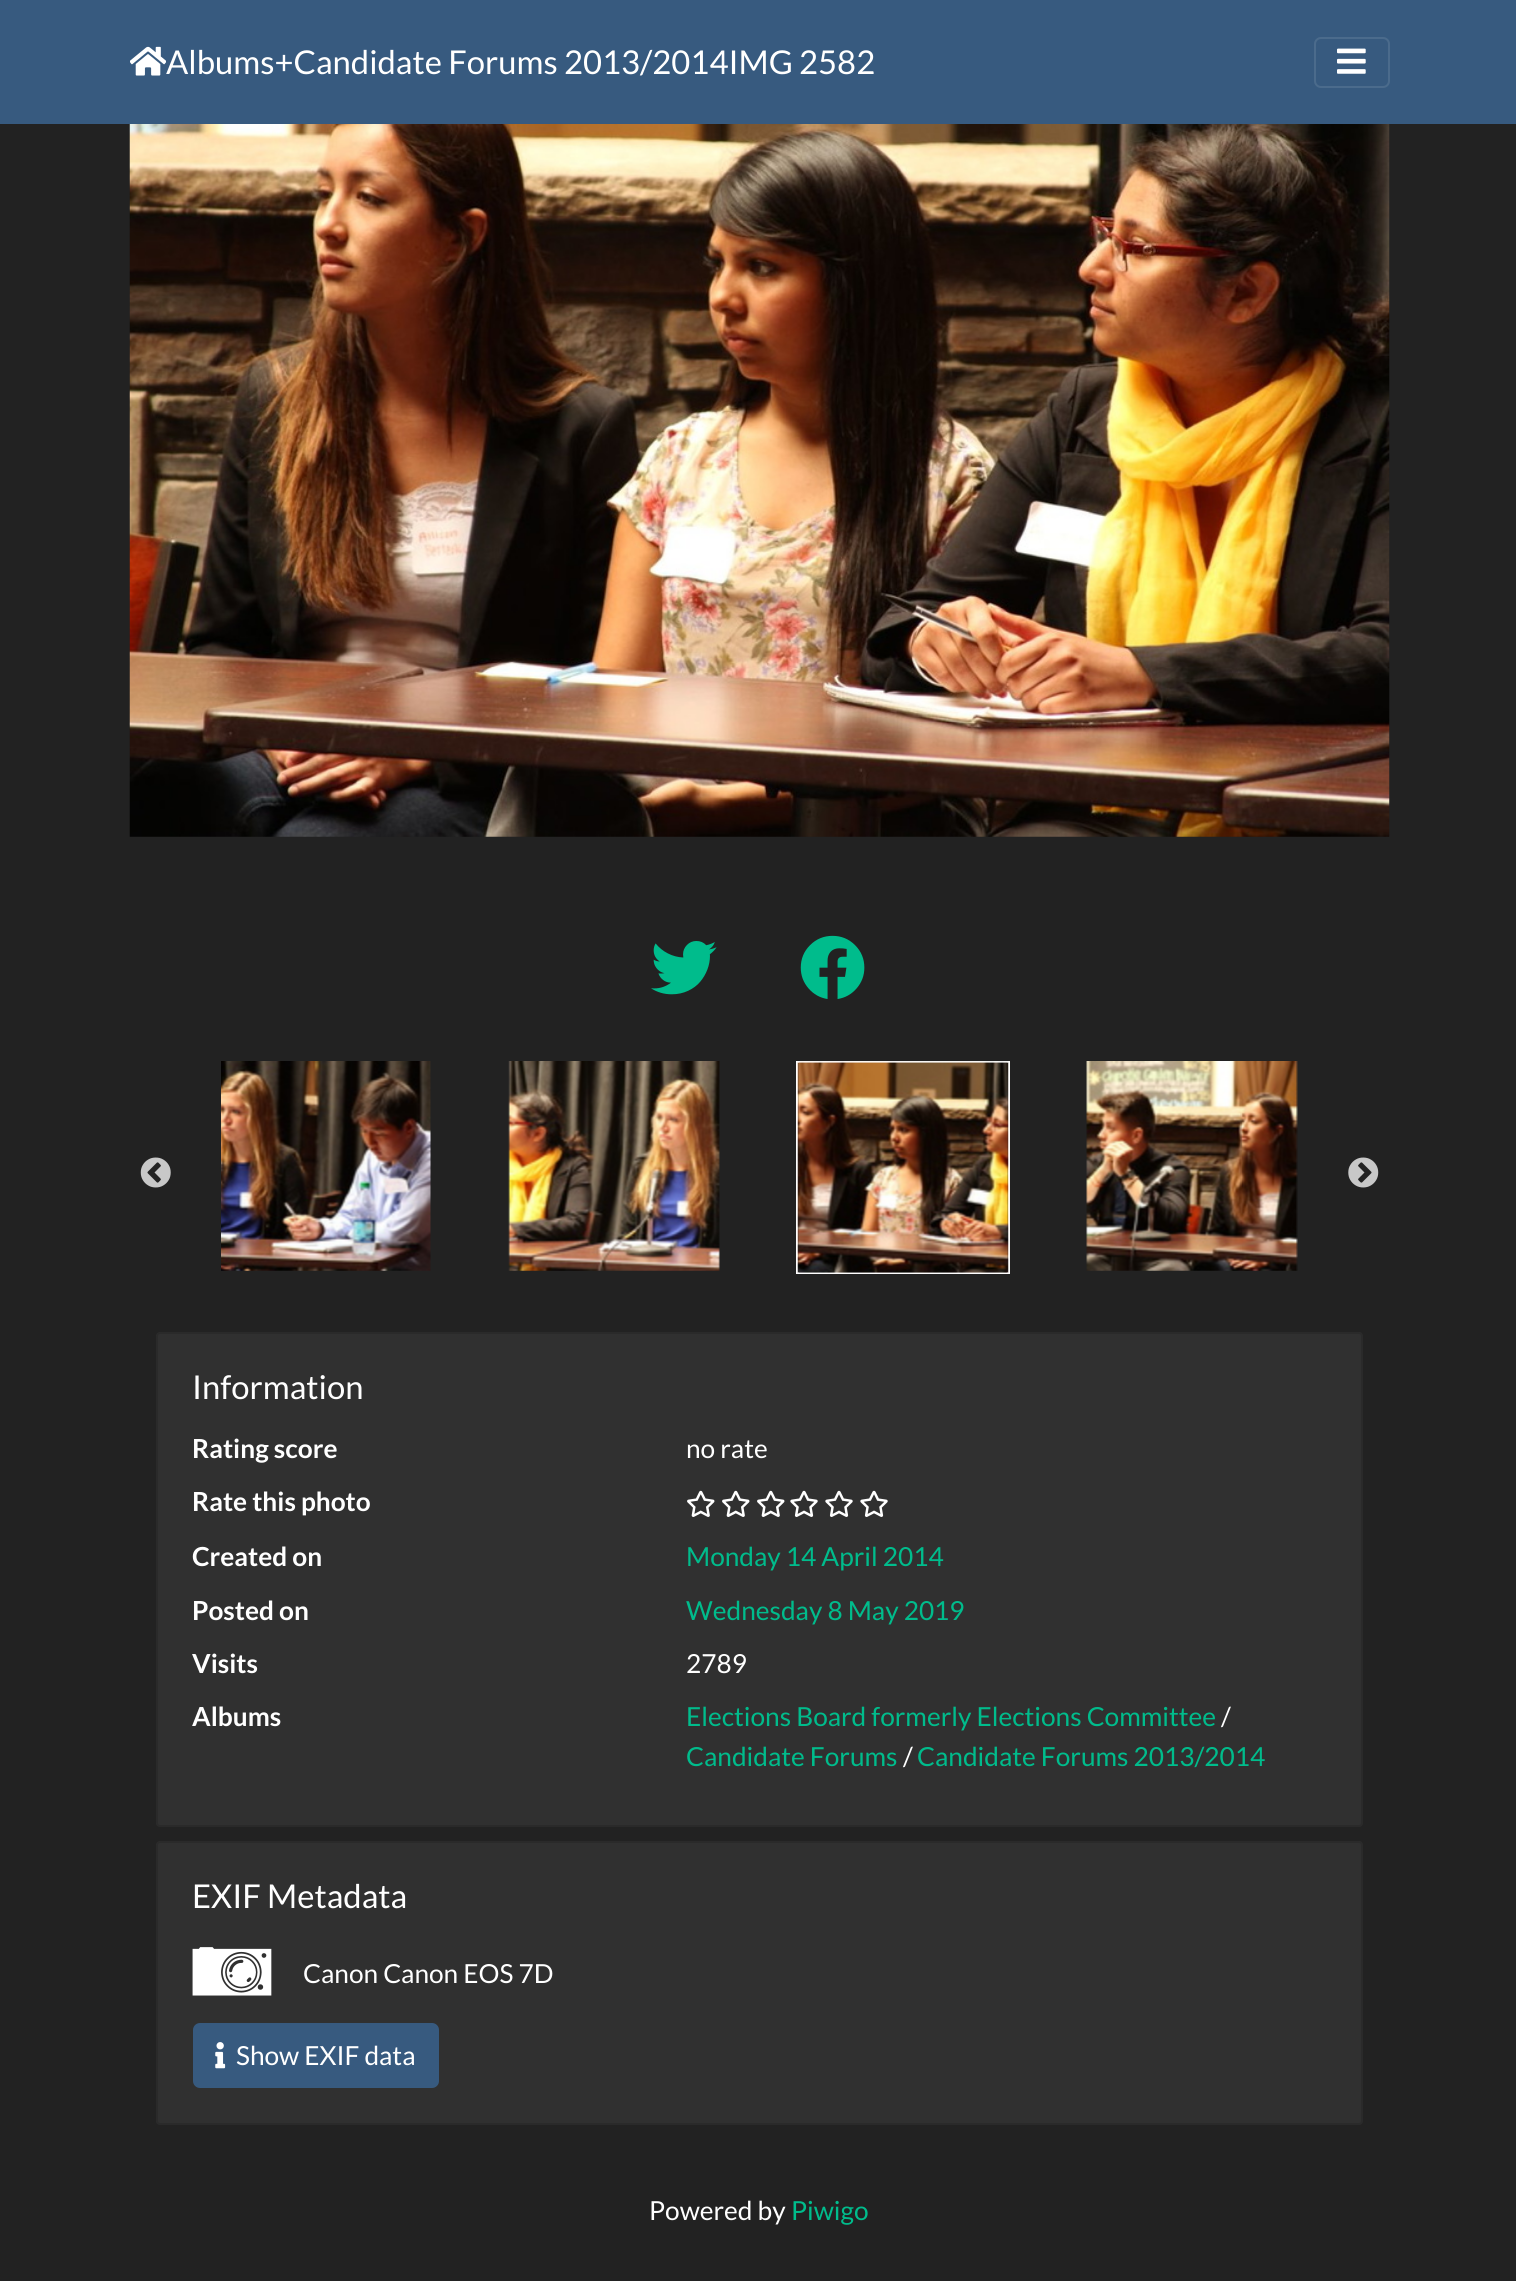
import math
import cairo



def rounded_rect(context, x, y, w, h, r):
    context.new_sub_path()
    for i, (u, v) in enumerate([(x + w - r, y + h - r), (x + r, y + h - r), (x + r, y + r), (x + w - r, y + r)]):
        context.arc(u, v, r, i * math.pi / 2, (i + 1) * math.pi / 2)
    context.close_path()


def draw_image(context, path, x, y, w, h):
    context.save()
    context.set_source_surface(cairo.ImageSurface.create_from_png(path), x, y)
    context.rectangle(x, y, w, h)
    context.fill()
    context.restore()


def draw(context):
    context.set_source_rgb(34 / 255, 34 / 255, 34 / 255)
    context.paint()
    context.set_source_rgb(55 / 255, 90 / 255, 127 / 255)
    context.rectangle(0, 0, 1516, 124)
    context.fill()
    rounded_rect(context, 1315, 38, 74, 49, 6)
    context.set_source_rgb(75 / 255, 107 / 255, 140 / 255)
    context.stroke()
    draw_image(context, "images/2.png", 1337, 48, 29, 26)
    draw_image(context, "images/3.png", 129, 124, 1261, 713)
    draw_image(context, "images/4.png", 651, 941, 66, 54)
    draw_image(context, "images/5.png", 800, 935, 65, 64)
    draw_image(context, "images/6.png", 140, 1157, 31, 31)
    draw_image(context, "images/7.png", 221, 1061, 210, 210)
    draw_image(context, "images/8.png", 508, 1061, 212, 210)
    context.rectangle(797, 1062, 212, 211)
    context.set_source_rgb(1, 1, 1)
    context.stroke()
    draw_image(context, "images/9.png", 797, 1061, 212, 212)
    draw_image(context, "images/10.png", 1086, 1061, 212, 210)
    draw_image(context, "images/11.png", 1348, 1157, 31, 31)
    context.set_source_rgb(48 / 255, 48 / 255, 48 / 255)
    rounded_rect(context, 156, 1332, 1207, 495, 4)
    context.fill()
    rounded_rect(context, 157, 1333, 1205, 493, 3)
    context.set_source_rgba(0, 0, 0, 0.12)
    context.stroke()
    draw_image(context, "images/12.png", 687, 1490, 28, 27)
    draw_image(context, "images/12.png", 722, 1490, 28, 27)
    draw_image(context, "images/12.png", 757, 1490, 28, 27)
    draw_image(context, "images/13.png", 790, 1490, 28, 27)
    draw_image(context, "images/13.png", 825, 1490, 28, 27)
    draw_image(context, "images/13.png", 860, 1490, 28, 27)
    context.set_source_rgb(48 / 255, 48 / 255, 48 / 255)
    rounded_rect(context, 156, 1841, 1207, 284, 4)
    context.fill()
    rounded_rect(context, 157, 1842, 1205, 282, 3)
    context.set_source_rgba(0, 0, 0, 0.12)
    context.stroke()
    draw_image(context, "images/14.png", 192, 1947, 80, 49)
    context.set_source_rgb(55 / 255, 90 / 255, 127 / 255)
    rounded_rect(context, 194, 2024, 244, 63, 6)
    context.fill_preserve()
    context.stroke()
    draw_image(context, "images/15.png", 215, 2042, 11, 27)
    context.select_font_face("Lato")
    context.set_font_size(32.8)
    context.set_source_rgb(1, 1, 1)
    context.move_to(166, 74)
    context.show_text("Albums+Candidate Forums 2013/2014IMG 2582")
    draw_image(context, "images/1.png", 130, 46, 36, 30)
    context.move_to(192, 1399)
    context.show_text("Information")
    context.select_font_face("Lato", cairo.FontSlant.NORMAL, cairo.FontWeight.BOLD)
    context.set_font_size(26.25)
    context.move_to(192, 1458)
    context.show_text("Rating score")
    context.select_font_face("Lato")
    context.move_to(686, 1458)
    context.show_text("no rate")
    context.select_font_face("Lato", cairo.FontSlant.NORMAL, cairo.FontWeight.BOLD)
    context.move_to(192, 1511)
    context.show_text("Rate this photo")
    context.move_to(192, 1566)
    context.show_text("Created on")
    context.select_font_face("Lato")
    context.set_source_rgb(0, 188 / 255, 140 / 255)
    context.move_to(686, 1566)
    context.show_text("Monday 14 April 2014")
    context.select_font_face("Lato", cairo.FontSlant.NORMAL, cairo.FontWeight.BOLD)
    context.set_source_rgb(1, 1, 1)
    context.move_to(192, 1620)
    context.show_text("Posted on")
    context.select_font_face("Lato")
    context.set_source_rgb(0, 188 / 255, 140 / 255)
    context.move_to(686, 1620)
    context.show_text("Wednesday 8 May 2019")
    context.select_font_face("Lato", cairo.FontSlant.NORMAL, cairo.FontWeight.BOLD)
    context.set_source_rgb(1, 1, 1)
    context.move_to(192, 1673)
    context.show_text("Visits")
    context.select_font_face("Lato")
    context.move_to(686, 1673)
    context.show_text("2789")
    context.select_font_face("Lato", cairo.FontSlant.NORMAL, cairo.FontWeight.BOLD)
    context.move_to(192, 1726)
    context.show_text("Albums")
    context.select_font_face("Lato")
    context.set_source_rgb(0, 188 / 255, 140 / 255)
    context.move_to(686, 1726)
    context.show_text("Elections Board formerly Elections Committee")
    context.set_source_rgb(1, 1, 1)
    context.move_to(1221, 1726)
    context.show_text("/")
    context.set_source_rgb(0, 188 / 255, 140 / 255)
    context.move_to(686, 1766)
    context.show_text("Candidate Forums")
    context.set_source_rgb(1, 1, 1)
    context.move_to(903, 1766)
    context.show_text("/")
    context.set_source_rgb(0, 188 / 255, 140 / 255)
    context.move_to(917, 1766)
    context.show_text("Candidate Forums 2013/2014")
    context.set_font_size(32.8)
    context.set_source_rgb(1, 1, 1)
    context.move_to(192, 1908)
    context.show_text("EXIF Metadata")
    context.set_font_size(26.25)
    context.move_to(303, 1983)
    context.show_text("Canon Canon EOS 7D")
    context.move_to(236, 2065)
    context.show_text("Show EXIF data")
    context.move_to(649, 2220)
    context.show_text("Powered by")
    context.set_source_rgb(0, 188 / 255, 140 / 255)
    context.move_to(791, 2220)
    context.show_text("Piwigo")


surface = cairo.ImageSurface(cairo.Format.RGB24, 1516, 2281)
context = cairo.Context(surface)
options = cairo.FontOptions()
options.set_hint_metrics(cairo.HintMetrics.OFF)
options.set_hint_style(cairo.HintStyle.NONE)
context.set_font_options(options)
context.set_miter_limit(4)
draw(context)
surface.write_to_png("out.png")
